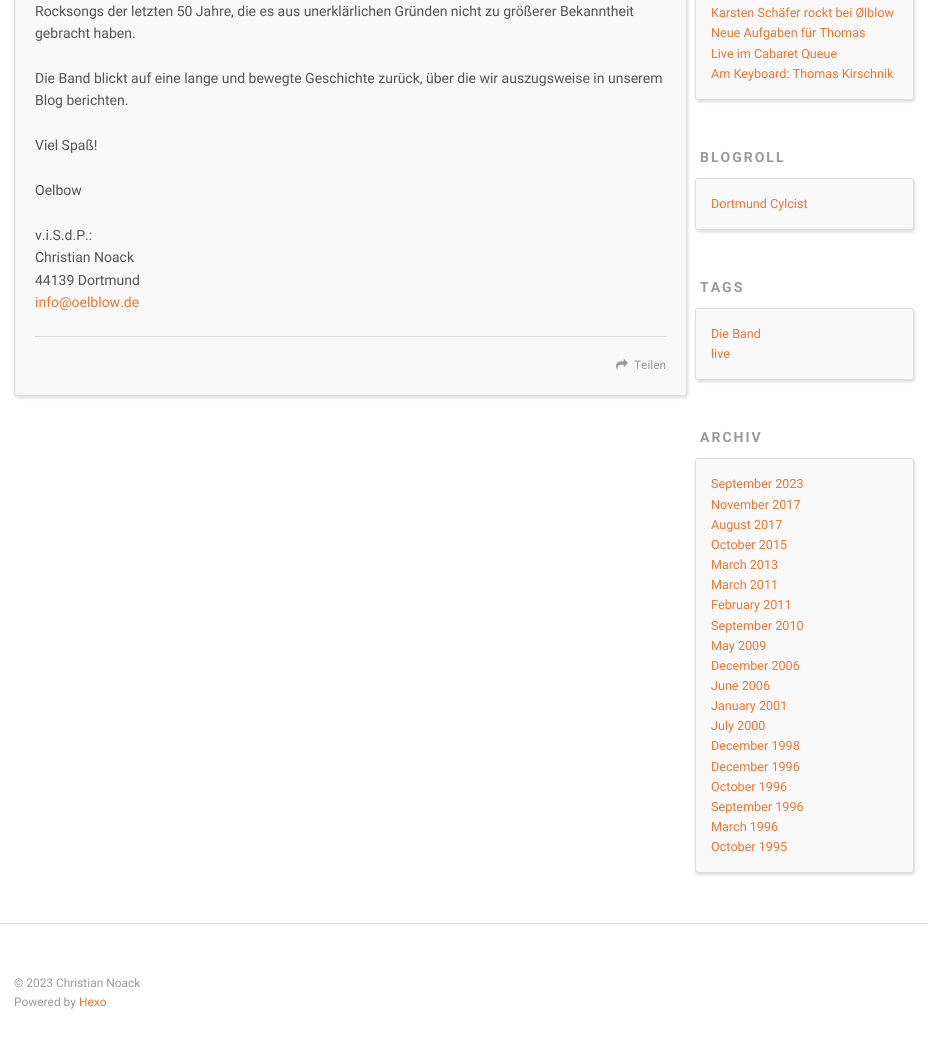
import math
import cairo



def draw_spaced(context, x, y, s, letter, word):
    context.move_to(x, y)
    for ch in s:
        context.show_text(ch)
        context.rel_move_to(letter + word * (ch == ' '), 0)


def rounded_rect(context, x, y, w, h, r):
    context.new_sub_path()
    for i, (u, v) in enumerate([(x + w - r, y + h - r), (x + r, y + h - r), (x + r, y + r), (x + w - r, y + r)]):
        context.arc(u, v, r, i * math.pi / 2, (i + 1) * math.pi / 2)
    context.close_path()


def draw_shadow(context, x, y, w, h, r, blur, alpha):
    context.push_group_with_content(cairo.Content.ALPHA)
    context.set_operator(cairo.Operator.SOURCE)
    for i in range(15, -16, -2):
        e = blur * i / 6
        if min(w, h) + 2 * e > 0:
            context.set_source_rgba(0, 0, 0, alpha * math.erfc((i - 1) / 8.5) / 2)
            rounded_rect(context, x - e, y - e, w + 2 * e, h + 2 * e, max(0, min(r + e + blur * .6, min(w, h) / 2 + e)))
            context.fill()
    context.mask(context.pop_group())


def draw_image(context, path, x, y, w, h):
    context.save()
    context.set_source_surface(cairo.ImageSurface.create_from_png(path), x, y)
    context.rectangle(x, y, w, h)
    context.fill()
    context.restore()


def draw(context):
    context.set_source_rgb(1, 1, 1)
    context.paint()
    context.set_source_rgb(221 / 255, 221 / 255, 221 / 255)
    draw_shadow(context, 15, -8, 673, 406, 3, 1.5, 1)
    context.set_source_rgb(248 / 255, 248 / 255, 248 / 255)
    rounded_rect(context, 14.5, -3.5, 672, 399, 2.5)
    context.fill_preserve()
    context.set_source_rgb(221 / 255, 221 / 255, 221 / 255)
    context.set_line_width(1)
    context.stroke()
    context.rectangle(35, 336, 631, 1)
    context.fill()
    draw_image(context, "images/1.png", 616, 359, 12, 11)
    context.set_source_rgb(221 / 255, 221 / 255, 221 / 255)
    draw_shadow(context, 696, -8, 219, 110, 3, 1.5, 1)
    context.set_source_rgb(248 / 255, 248 / 255, 248 / 255)
    rounded_rect(context, 695.5, -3.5, 218, 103, 2.5)
    context.fill_preserve()
    context.set_source_rgb(221 / 255, 221 / 255, 221 / 255)
    context.stroke()
    context.set_source_rgb(221 / 255, 221 / 255, 221 / 255)
    draw_shadow(context, 696, 180, 219, 52, 3, 1.5, 1)
    context.set_source_rgb(248 / 255, 248 / 255, 248 / 255)
    rounded_rect(context, 695.5, 178.5, 218, 51, 2.5)
    context.fill_preserve()
    context.set_source_rgb(221 / 255, 221 / 255, 221 / 255)
    context.stroke()
    context.set_source_rgb(221 / 255, 221 / 255, 221 / 255)
    draw_shadow(context, 696, 310, 219, 72, 3, 1.5, 1)
    context.set_source_rgb(248 / 255, 248 / 255, 248 / 255)
    rounded_rect(context, 695.5, 308.5, 218, 71, 2.5)
    context.fill_preserve()
    context.set_source_rgb(221 / 255, 221 / 255, 221 / 255)
    context.stroke()
    context.set_source_rgb(221 / 255, 221 / 255, 221 / 255)
    draw_shadow(context, 696, 460, 219, 415, 3, 1.5, 1)
    context.set_source_rgb(248 / 255, 248 / 255, 248 / 255)
    rounded_rect(context, 695.5, 458.5, 218, 414, 2.5)
    context.fill_preserve()
    context.set_source_rgb(221 / 255, 221 / 255, 221 / 255)
    context.stroke()
    context.rectangle(0, 923, 928, 1)
    context.fill()
    context.select_font_face("Roboto")
    context.set_font_size(14)
    context.set_source_rgb(85 / 255, 85 / 255, 85 / 255)
    context.move_to(35, 16)
    context.show_text("Rocksongs der letzten 50 Jahre, die es aus unerklärlichen Gründen nicht zu größerer Bekanntheit")
    context.move_to(35, 38)
    context.show_text("gebracht haben.")
    context.move_to(35, 83)
    context.show_text("Die Band blickt auf eine lange und bewegte Geschichte zurück, über die wir auszugsweise in unserem")
    context.move_to(35, 105)
    context.show_text("Blog berichten.")
    context.move_to(35, 150)
    context.show_text("Viel Spaß!")
    context.move_to(35, 195)
    context.show_text("Oelbow")
    context.move_to(35, 240)
    context.show_text("v.i.S.d.P.:")
    context.move_to(35, 262)
    context.show_text("Christian Noack")
    context.move_to(35, 285)
    context.show_text("44139 Dortmund")
    context.set_source_rgb(236 / 255, 119 / 255, 49 / 255)
    context.move_to(35, 307)
    context.show_text("info@oelblow.de")
    context.set_font_size(11.9)
    context.set_source_rgb(153 / 255, 153 / 255, 153 / 255)
    context.move_to(634, 369)
    context.show_text("Teilen")
    context.set_font_size(12.6)
    context.set_source_rgb(236 / 255, 119 / 255, 49 / 255)
    context.move_to(711, 17)
    context.show_text("Karsten Schäfer rockt bei Ølblow")
    context.move_to(711, 37)
    context.show_text("Neue Aufgaben für Thomas")
    context.move_to(711, 58)
    context.show_text("Live im Cabaret Queue")
    context.move_to(711, 78)
    context.show_text("Am Keyboard: Thomas Kirschnik")
    context.select_font_face("Roboto", cairo.FontSlant.NORMAL, cairo.FontWeight.BOLD)
    context.set_font_size(14)
    context.set_source_rgb(153 / 255, 153 / 255, 153 / 255)
    draw_spaced(context, 700, 162, "BLOGROLL", 2, 0)
    context.select_font_face("Roboto")
    context.set_font_size(12.6)
    context.set_source_rgb(236 / 255, 119 / 255, 49 / 255)
    context.move_to(711, 208)
    context.show_text("Dortmund Cylcist")
    context.select_font_face("Roboto", cairo.FontSlant.NORMAL, cairo.FontWeight.BOLD)
    context.set_font_size(14)
    context.set_source_rgb(153 / 255, 153 / 255, 153 / 255)
    draw_spaced(context, 700, 292, "TAGS", 2, 0)
    context.select_font_face("Roboto")
    context.set_font_size(12.6)
    context.set_source_rgb(236 / 255, 119 / 255, 49 / 255)
    context.move_to(711, 338)
    context.show_text("Die Band")
    context.move_to(711, 358)
    context.show_text("live")
    context.select_font_face("Roboto", cairo.FontSlant.NORMAL, cairo.FontWeight.BOLD)
    context.set_font_size(14)
    context.set_source_rgb(153 / 255, 153 / 255, 153 / 255)
    draw_spaced(context, 700, 442, "ARCHIV", 2, 0)
    context.select_font_face("Roboto")
    context.set_font_size(12.6)
    context.set_source_rgb(236 / 255, 119 / 255, 49 / 255)
    context.move_to(711, 488)
    context.show_text("September 2023")
    context.move_to(711, 509)
    context.show_text("November 2017")
    context.move_to(711, 529)
    context.show_text("August 2017")
    context.move_to(711, 549)
    context.show_text("October 2015")
    context.move_to(711, 569)
    context.show_text("March 2013")
    context.move_to(711, 589)
    context.show_text("March 2011")
    context.move_to(711, 609)
    context.show_text("February 2011")
    context.move_to(711, 630)
    context.show_text("September 2010")
    context.move_to(711, 650)
    context.show_text("May 2009")
    context.move_to(711, 670)
    context.show_text("December 2006")
    context.move_to(711, 690)
    context.show_text("June 2006")
    context.move_to(711, 710)
    context.show_text("January 2001")
    context.move_to(711, 730)
    context.show_text("July 2000")
    context.move_to(711, 750)
    context.show_text("December 1998")
    context.move_to(711, 771)
    context.show_text("December 1996")
    context.move_to(711, 791)
    context.show_text("October 1996")
    context.move_to(711, 811)
    context.show_text("September 1996")
    context.move_to(711, 831)
    context.show_text("March 1996")
    context.move_to(711, 851)
    context.show_text("October 1995")
    context.set_font_size(11.9)
    context.set_source_rgb(153 / 255, 153 / 255, 153 / 255)
    context.move_to(14, 987)
    context.show_text("© 2023 Christian Noack")
    context.move_to(14, 1006)
    context.show_text("Powered by")
    context.set_source_rgb(236 / 255, 119 / 255, 49 / 255)
    context.move_to(79, 1006)
    context.show_text("Hexo")


surface = cairo.ImageSurface(cairo.Format.RGB24, 928, 1062)
context = cairo.Context(surface)
options = cairo.FontOptions()
options.set_hint_metrics(cairo.HintMetrics.OFF)
options.set_hint_style(cairo.HintStyle.NONE)
context.set_font_options(options)
context.set_miter_limit(4)
draw(context)
surface.write_to_png("out.png")
